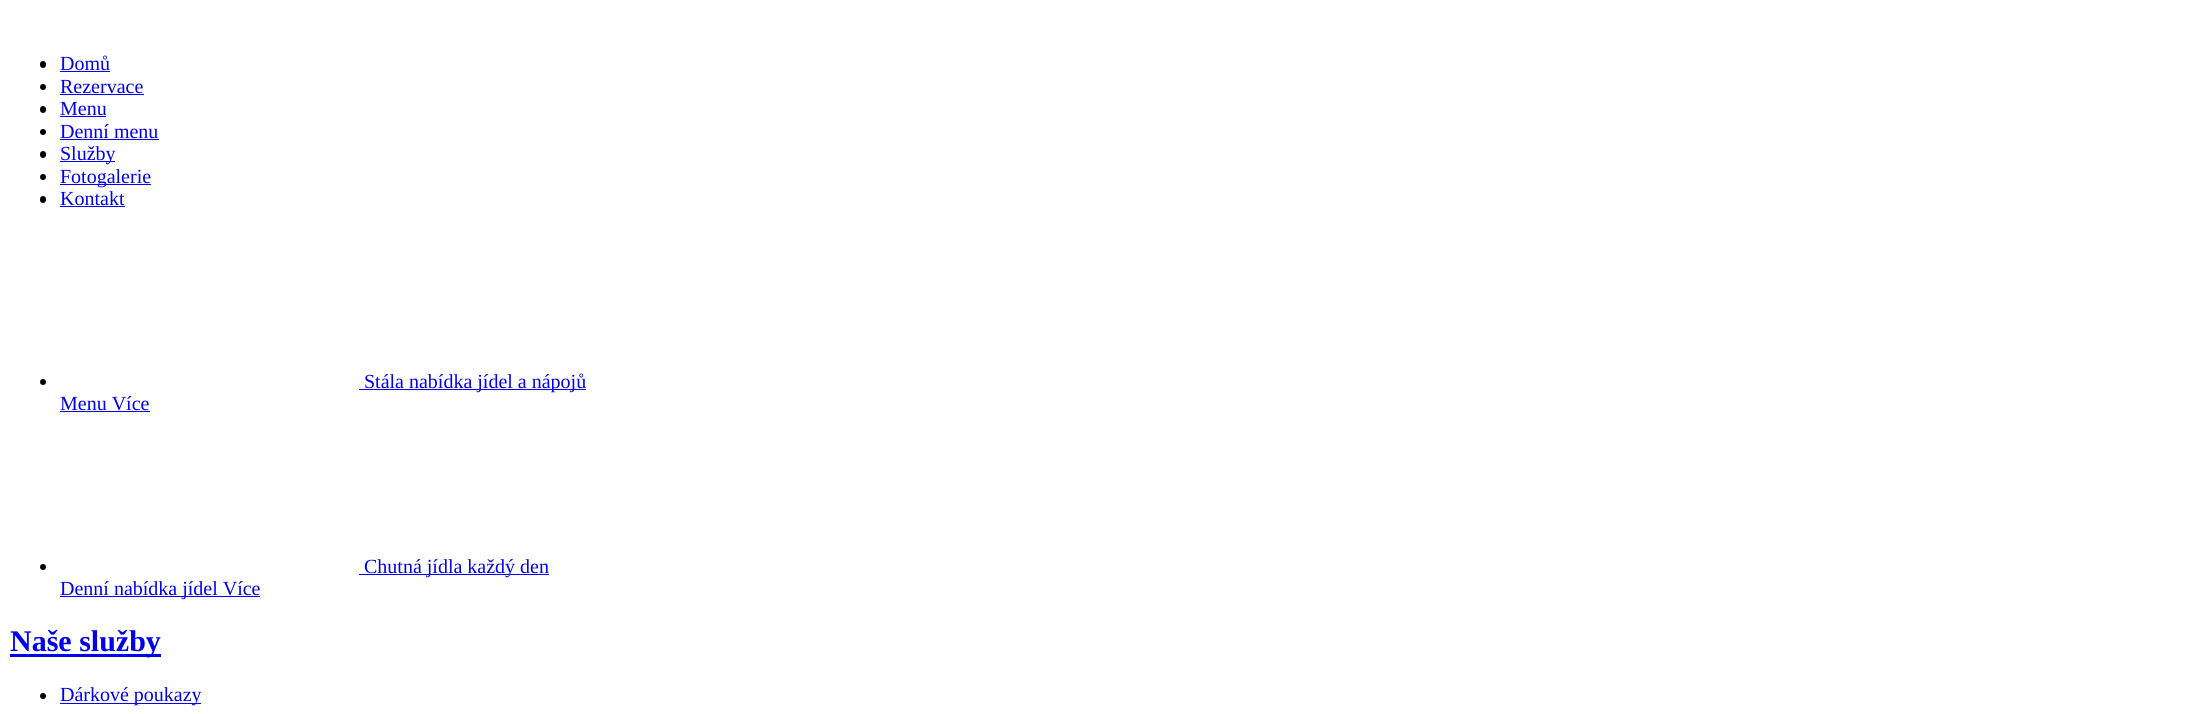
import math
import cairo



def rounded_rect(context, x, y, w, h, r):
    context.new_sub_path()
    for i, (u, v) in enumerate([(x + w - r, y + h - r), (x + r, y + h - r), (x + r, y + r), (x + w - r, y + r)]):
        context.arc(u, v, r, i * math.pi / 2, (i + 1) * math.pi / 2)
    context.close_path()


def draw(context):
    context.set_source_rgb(1, 1, 1)
    context.paint()
    context.set_source_rgb(0, 0, 0)
    rounded_rect(context, 40, 61, 6, 7, 3)
    context.fill()
    context.set_source_rgb(0, 0, 238 / 255)
    context.rectangle(60, 71, 50, 1)
    context.fill()
    context.set_source_rgb(0, 0, 0)
    context.arc(43, 87, 3, 0, 2 * math.pi)
    context.fill()
    context.set_source_rgb(0, 0, 238 / 255)
    context.rectangle(60, 94, 84, 1)
    context.fill()
    context.set_source_rgb(0, 0, 0)
    rounded_rect(context, 40, 106, 6, 7, 3)
    context.fill()
    context.set_source_rgb(0, 0, 238 / 255)
    context.rectangle(60, 116, 46, 1)
    context.fill()
    context.set_source_rgb(0, 0, 0)
    context.arc(43, 132, 3, 0, 2 * math.pi)
    context.fill()
    context.set_source_rgb(0, 0, 238 / 255)
    context.rectangle(60, 139, 99, 1)
    context.fill()
    context.set_source_rgb(0, 0, 0)
    rounded_rect(context, 40, 151, 6, 7, 3)
    context.fill()
    context.set_source_rgb(0, 0, 238 / 255)
    context.rectangle(60, 161, 55, 1)
    context.fill()
    context.set_source_rgb(0, 0, 0)
    context.arc(43, 177, 3, 0, 2 * math.pi)
    context.fill()
    context.set_source_rgb(0, 0, 238 / 255)
    context.rectangle(60, 184, 91, 1)
    context.fill()
    context.set_source_rgb(0, 0, 0)
    rounded_rect(context, 40, 196, 6, 7, 3)
    context.fill()
    context.set_source_rgb(0, 0, 238 / 255)
    context.rectangle(60, 206, 65, 1)
    context.fill()
    context.set_source_rgb(0, 0, 0)
    context.arc(43, 382, 3, 0, 2 * math.pi)
    context.fill()
    context.set_source_rgb(0, 0, 238 / 255)
    context.rectangle(359, 389, 227, 1)
    context.fill()
    context.rectangle(60, 411, 90, 1)
    context.fill()
    context.set_source_rgb(0, 0, 0)
    context.arc(43, 567, 3, 0, 2 * math.pi)
    context.fill()
    context.set_source_rgb(0, 0, 238 / 255)
    context.rectangle(359, 574, 190, 1)
    context.fill()
    context.rectangle(60, 596, 200, 1)
    context.fill()
    context.rectangle(10, 654, 151, 3)
    context.fill()
    context.set_source_rgb(0, 0, 0)
    context.arc(43, 696, 3, 0, 2 * math.pi)
    context.fill()
    context.set_source_rgb(0, 0, 238 / 255)
    context.rectangle(60, 703, 141, 1)
    context.fill()
    context.select_font_face("Liberation Serif")
    context.set_font_size(20)
    context.move_to(60, 70)
    context.show_text("Domů")
    context.move_to(60, 93)
    context.show_text("Rezervace")
    context.move_to(60, 115)
    context.show_text("Menu")
    context.move_to(60, 138)
    context.show_text("Denní menu")
    context.move_to(60, 160)
    context.show_text("Služby")
    context.move_to(60, 183)
    context.show_text("Fotogalerie")
    context.move_to(60, 205)
    context.show_text("Kontakt")
    context.move_to(364, 388)
    context.show_text("Stála nabídka jídel a nápojů")
    context.move_to(60, 410)
    context.show_text("Menu Více")
    context.move_to(364, 573)
    context.show_text("Chutná jídla každý den")
    context.move_to(60, 595)
    context.show_text("Denní nabídka jídel Více")
    context.select_font_face("Liberation Serif", cairo.FontSlant.NORMAL, cairo.FontWeight.BOLD)
    context.set_font_size(30)
    context.move_to(10, 651)
    context.show_text("Naše služby")
    context.select_font_face("Liberation Serif")
    context.set_font_size(20)
    context.move_to(60, 701)
    context.show_text("Dárkové poukazy")


surface = cairo.ImageSurface(cairo.Format.RGB24, 2205, 714)
context = cairo.Context(surface)
options = cairo.FontOptions()
options.set_hint_metrics(cairo.HintMetrics.OFF)
options.set_hint_style(cairo.HintStyle.NONE)
context.set_font_options(options)
context.set_miter_limit(4)
draw(context)
surface.write_to_png("out.png")
